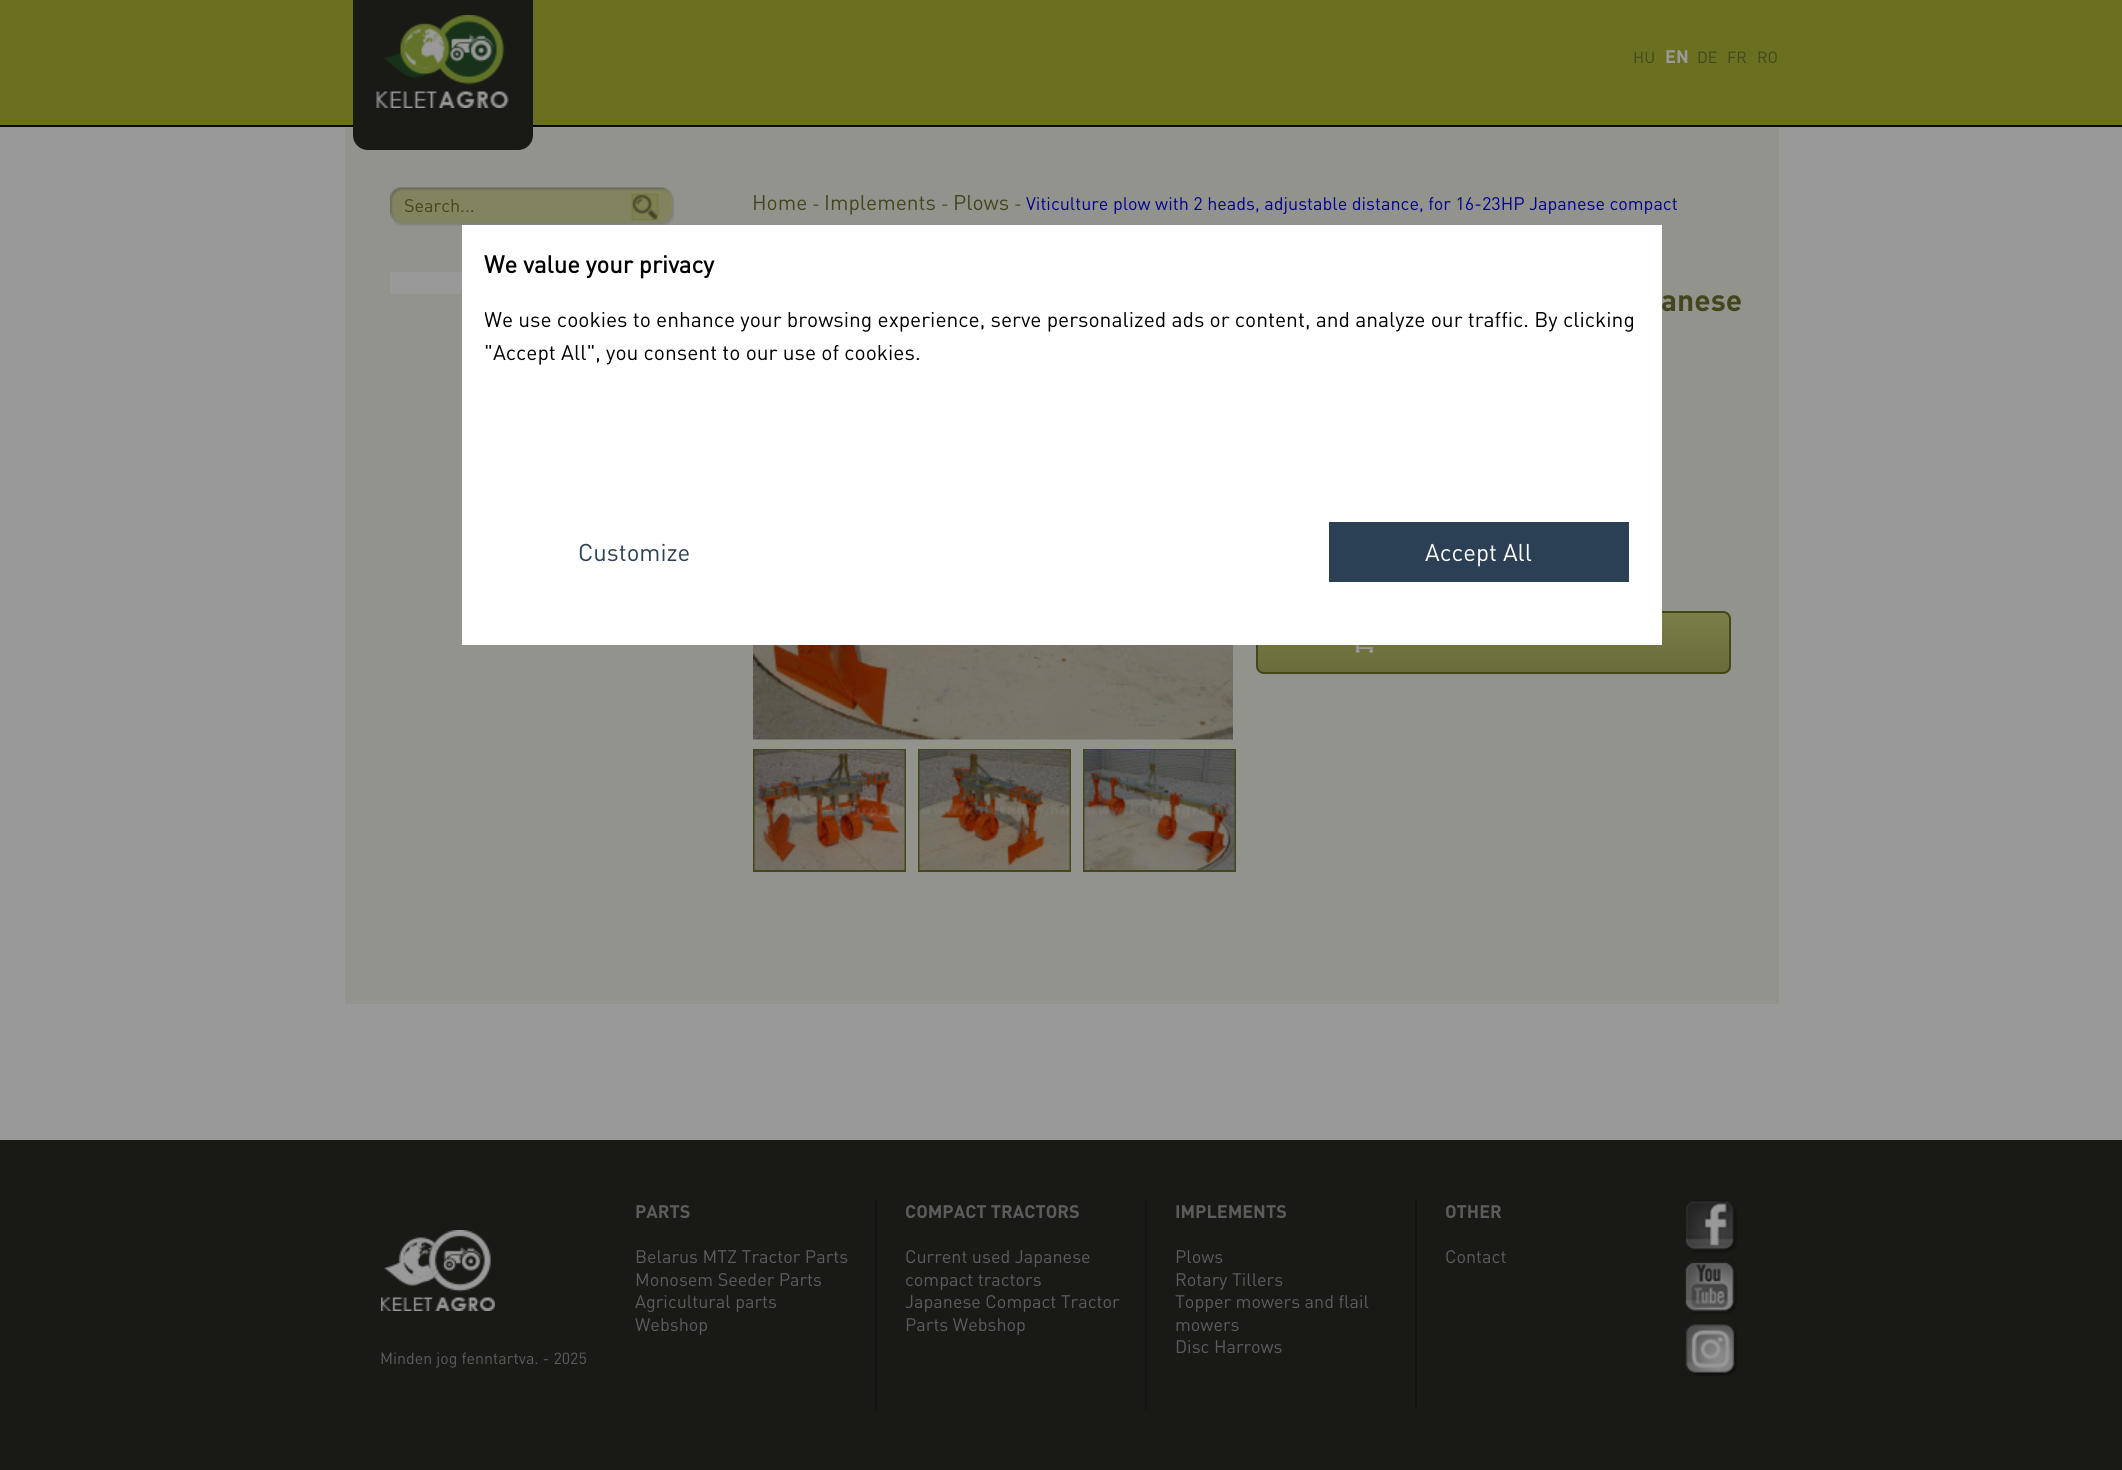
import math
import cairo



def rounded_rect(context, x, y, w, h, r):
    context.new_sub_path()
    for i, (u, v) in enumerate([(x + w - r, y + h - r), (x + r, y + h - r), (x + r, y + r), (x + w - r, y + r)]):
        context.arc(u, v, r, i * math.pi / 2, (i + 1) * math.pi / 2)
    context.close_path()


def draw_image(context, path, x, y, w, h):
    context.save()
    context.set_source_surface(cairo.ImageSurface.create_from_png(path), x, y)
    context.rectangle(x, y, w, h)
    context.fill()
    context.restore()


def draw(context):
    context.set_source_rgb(153 / 255, 153 / 255, 153 / 255)
    context.paint()
    context.set_source_rgb(107 / 255, 111 / 255, 32 / 255)
    context.rectangle(0, 0, 2122, 125)
    context.fill()
    context.set_source_rgb(9 / 255, 9 / 255, 9 / 255)
    context.rectangle(0, 125, 2122, 2)
    context.fill()
    context.set_source_rgb(147 / 255, 147 / 255, 142 / 255)
    context.rectangle(345, 128, 1434, 876)
    context.fill()
    context.set_source_rgb(25 / 255, 25 / 255, 22 / 255)
    context.new_path()
    context.move_to(353, 0)
    context.line_to(533, 0)
    context.line_to(533, 135)
    context.curve_to(533, 143.5, 526.5, 150, 518, 150)
    context.line_to(368, 150)
    context.curve_to(359.5, 150, 353, 143.5, 353, 135)
    context.close_path()
    context.fill()
    draw_image(context, "images/1.png", 376, 15, 133, 93)
    draw_image(context, "images/2.png", 390, 187, 285, 39)
    draw_image(context, "images/3.png", 631, 193, 28, 28)
    context.set_source_rgb(153 / 255, 153 / 255, 153 / 255)
    context.rectangle(390, 272, 72, 22)
    context.fill()
    draw_image(context, "images/4.png", 753, 645, 480, 95)
    context.rectangle(754, 750, 151, 121)
    context.set_source_rgb(68 / 255, 71 / 255, 23 / 255)
    context.stroke()
    draw_image(context, "images/5.png", 754, 750, 151, 120)
    context.rectangle(919, 750, 151, 121)
    context.stroke()
    draw_image(context, "images/6.png", 919, 750, 151, 120)
    context.rectangle(1084, 750, 151, 121)
    context.stroke()
    draw_image(context, "images/7.png", 1084, 750, 151, 120)
    context.save()
    rounded_rect(context, 1256, 611, 475, 63, 8)
    context.clip()
    gradient = cairo.LinearGradient(1493, 612, 1493, 672)
    gradient.add_color_stop_rgba(0, 124 / 255, 127 / 255, 72 / 255, 1)
    gradient.add_color_stop_rgba(1, 105 / 255, 108 / 255, 59 / 255, 1)
    context.set_source(gradient)
    context.rectangle(1256, 612, 475, 60)
    context.fill()
    context.restore()
    rounded_rect(context, 1257, 612, 473, 61, 7)
    context.stroke()
    draw_image(context, "images/8.png", 1355, 645, 19, 8)
    context.set_source_rgb(25 / 255, 25 / 255, 22 / 255)
    context.rectangle(0, 1140, 2122, 330)
    context.fill()
    context.set_source_rgb(20 / 255, 19 / 255, 19 / 255)
    context.rectangle(875, 1200, 2, 210)
    context.fill()
    context.rectangle(1145, 1200, 2, 210)
    context.fill()
    context.rectangle(1415, 1200, 2, 210)
    context.fill()
    draw_image(context, "images/9.png", 1685, 1200, 52, 53)
    draw_image(context, "images/10.png", 1685, 1262, 52, 52)
    draw_image(context, "images/11.png", 1685, 1324, 52, 52)
    draw_image(context, "images/12.png", 381, 1230, 114, 81)
    context.select_font_face("DIN")
    context.set_font_size(16)
    context.set_source_rgb(67 / 255, 70 / 255, 29 / 255)
    context.move_to(1633, 63)
    context.show_text("HU")
    context.select_font_face("DIN", cairo.FontSlant.NORMAL, cairo.FontWeight.BOLD)
    context.set_font_size(18)
    context.set_source_rgb(153 / 255, 153 / 255, 153 / 255)
    context.move_to(1665, 63)
    context.show_text("EN")
    context.select_font_face("DIN")
    context.set_font_size(16)
    context.set_source_rgb(67 / 255, 70 / 255, 29 / 255)
    context.move_to(1697, 63)
    context.show_text("DE")
    context.move_to(1727, 63)
    context.show_text("FR")
    context.move_to(1757, 63)
    context.show_text("RO")
    context.set_font_size(18)
    context.set_source_rgb(68 / 255, 71 / 255, 23 / 255)
    context.move_to(404, 212)
    context.show_text("Search...")
    context.set_font_size(21)
    context.set_source_rgb(67 / 255, 70 / 255, 29 / 255)
    context.move_to(752, 210)
    context.show_text("Home")
    context.set_font_size(18)
    context.move_to(812, 210)
    context.show_text("-")
    context.set_font_size(21)
    context.move_to(824, 210)
    context.show_text("Implements")
    context.set_font_size(18)
    context.move_to(941, 210)
    context.show_text("-")
    context.set_font_size(21)
    context.move_to(953, 210)
    context.show_text("Plows")
    context.set_font_size(18)
    context.move_to(1014, 210)
    context.show_text("-")
    context.set_source_rgb(0, 0, 143 / 255)
    context.move_to(1026, 210)
    context.show_text("Viticulture plow with 2 heads, adjustable distance, for 16-23HP Japanese compact")
    context.select_font_face("DIN", cairo.FontSlant.NORMAL, cairo.FontWeight.BOLD)
    context.set_font_size(30)
    context.set_source_rgb(67 / 255, 70 / 255, 29 / 255)
    context.move_to(1661, 311)
    context.show_text("anese")
    context.set_source_rgb(1, 1, 1)
    context.rectangle(462, 225, 1200, 420)
    context.fill()
    context.select_font_face("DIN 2", cairo.FontSlant.NORMAL, cairo.FontWeight.BOLD)
    context.set_font_size(24)
    context.set_source_rgb(0, 0, 0)
    context.move_to(484, 273)
    context.show_text("We value your privacy")
    context.save()
    context.rectangle(485, 302, 1155, 198)
    context.clip()
    context.select_font_face("DIN")
    context.set_font_size(21)
    context.move_to(484, 327)
    context.show_text("We use cookies to enhance your browsing experience, serve personalized ads or content, and analyze our traffic. By clicking")
    context.restore()
    context.select_font_face("DIN")
    context.set_font_size(21)
    context.move_to(484, 360)
    context.show_text("\"Accept All\", you consent to our use of cookies.")
    context.set_font_size(24)
    context.set_source_rgb(44 / 255, 64 / 255, 85 / 255)
    context.move_to(578, 561)
    context.show_text("Customize")
    context.rectangle(1329, 522, 300, 60)
    context.fill()
    context.set_source_rgb(1, 1, 1)
    context.move_to(1425, 561)
    context.show_text("Accept All")
    context.select_font_face("DIN", cairo.FontSlant.NORMAL, cairo.FontWeight.BOLD)
    context.set_font_size(18)
    context.set_source_rgb(93 / 255, 92 / 255, 92 / 255)
    context.move_to(635, 1218)
    context.show_text("PARTS")
    context.select_font_face("DIN")
    context.move_to(635, 1263)
    context.show_text("Belarus MTZ Tractor Parts")
    context.move_to(635, 1286)
    context.show_text("Monosem Seeder Parts")
    context.move_to(635, 1308)
    context.show_text("Agricultural parts")
    context.move_to(635, 1331)
    context.show_text("Webshop")
    context.select_font_face("DIN", cairo.FontSlant.NORMAL, cairo.FontWeight.BOLD)
    context.move_to(905, 1218)
    context.show_text("COMPACT TRACTORS")
    context.select_font_face("DIN")
    context.move_to(905, 1263)
    context.show_text("Current used Japanese")
    context.move_to(905, 1286)
    context.show_text("compact tractors")
    context.move_to(905, 1308)
    context.show_text("Japanese Compact Tractor")
    context.move_to(905, 1331)
    context.show_text("Parts Webshop")
    context.select_font_face("DIN", cairo.FontSlant.NORMAL, cairo.FontWeight.BOLD)
    context.move_to(1175, 1218)
    context.show_text("IMPLEMENTS")
    context.select_font_face("DIN")
    context.move_to(1175, 1263)
    context.show_text("Plows")
    context.move_to(1175, 1286)
    context.show_text("Rotary Tillers")
    context.move_to(1175, 1308)
    context.show_text("Topper mowers and flail")
    context.move_to(1175, 1331)
    context.show_text("mowers")
    context.move_to(1175, 1353)
    context.show_text("Disc Harrows")
    context.select_font_face("DIN", cairo.FontSlant.NORMAL, cairo.FontWeight.BOLD)
    context.move_to(1445, 1218)
    context.show_text("OTHER")
    context.select_font_face("DIN")
    context.move_to(1445, 1263)
    context.show_text("Contact")
    context.set_font_size(16)
    context.move_to(380, 1364)
    context.show_text("Minden jog fenntartva. - 2025")


surface = cairo.ImageSurface(cairo.Format.RGB24, 2122, 1470)
context = cairo.Context(surface)
options = cairo.FontOptions()
options.set_hint_metrics(cairo.HintMetrics.OFF)
options.set_hint_style(cairo.HintStyle.NONE)
context.set_font_options(options)
context.set_miter_limit(4)
draw(context)
surface.write_to_png("out.png")
